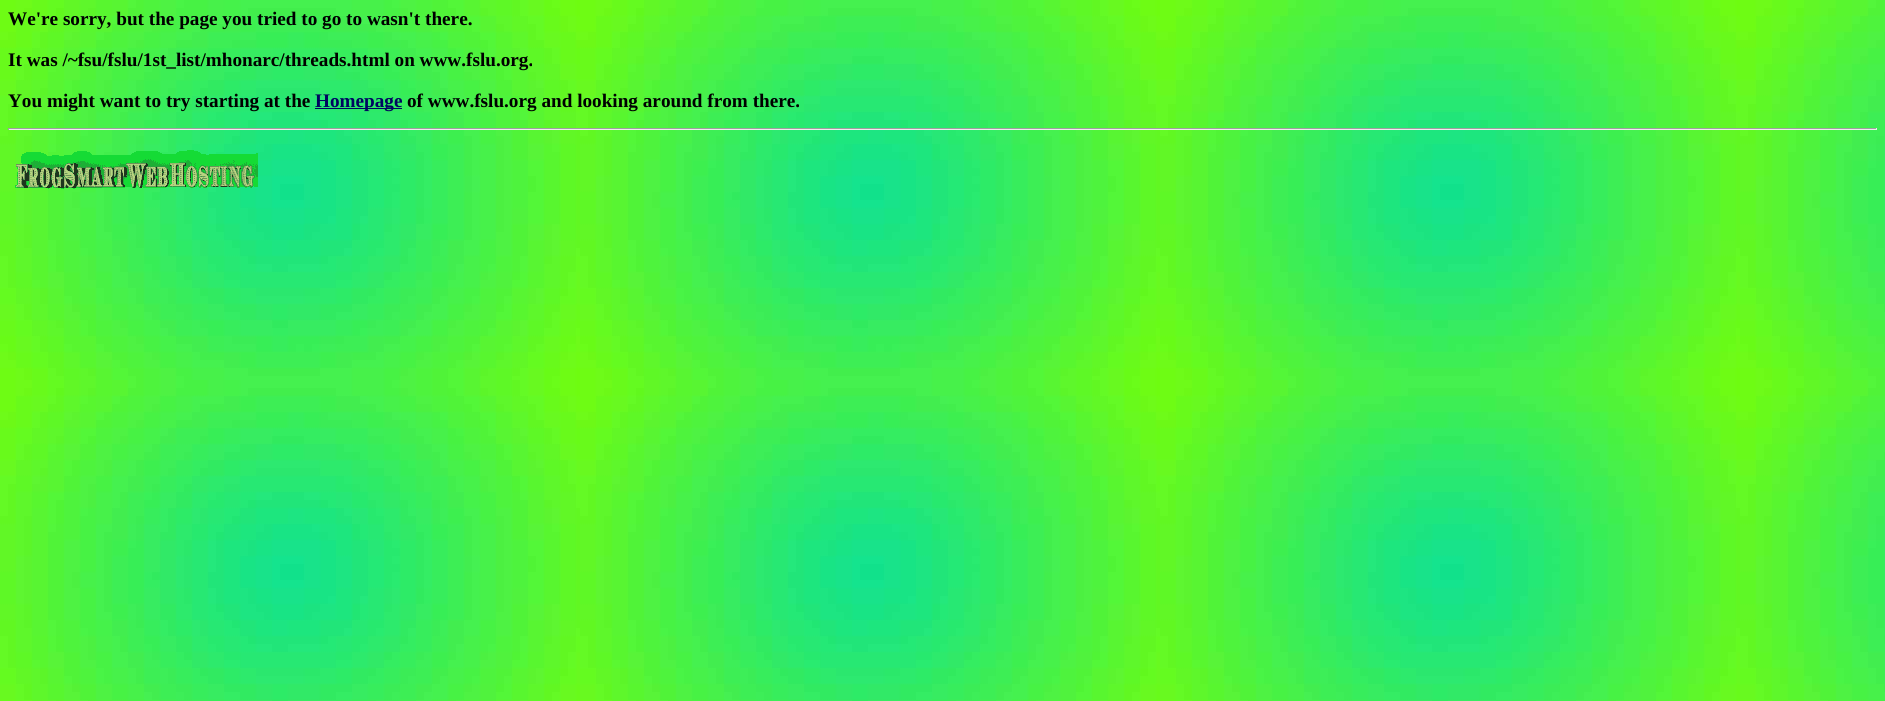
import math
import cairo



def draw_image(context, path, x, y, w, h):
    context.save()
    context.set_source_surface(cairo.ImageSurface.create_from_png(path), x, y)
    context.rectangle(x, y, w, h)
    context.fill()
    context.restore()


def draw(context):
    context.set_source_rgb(1, 1, 1)
    context.paint()
    draw_image(context, "images/1.png", 0, 0, 1885, 701)
    context.set_source_rgb(0, 5 / 255, 96 / 255)
    context.rectangle(315, 108, 87, 1)
    context.fill()
    context.set_source_rgb(159 / 255, 159 / 255, 159 / 255)
    context.rectangle(8, 128, 1869, 1)
    context.fill()
    context.set_source_rgb(238 / 255, 238 / 255, 238 / 255)
    context.rectangle(1876, 128, 1, 2)
    context.fill()
    context.rectangle(8, 129, 1869, 1)
    context.fill()
    context.set_source_rgb(159 / 255, 159 / 255, 159 / 255)
    context.rectangle(8, 128, 1, 2)
    context.fill()
    draw_image(context, "images/2.png", 15, 150, 243, 39)
    context.select_font_face("Liberation Serif", cairo.FontSlant.NORMAL, cairo.FontWeight.BOLD)
    context.set_font_size(19.2)
    context.set_source_rgb(0, 0, 0)
    context.move_to(8, 25)
    context.show_text("We're sorry, but the page you tried to go to wasn't there.")
    context.move_to(8, 66)
    context.show_text("It was /~fsu/fslu/1st_list/mhonarc/threads.html on www.fslu.org.")
    context.move_to(8, 107)
    context.show_text("You might want to try starting at the")
    context.set_source_rgb(0, 5 / 255, 96 / 255)
    context.move_to(315, 107)
    context.show_text("Homepage")
    context.set_source_rgb(0, 0, 0)
    context.move_to(407, 107)
    context.show_text("of www.fslu.org and looking around from there.")


surface = cairo.ImageSurface(cairo.Format.RGB24, 1885, 701)
context = cairo.Context(surface)
options = cairo.FontOptions()
options.set_hint_metrics(cairo.HintMetrics.OFF)
options.set_hint_style(cairo.HintStyle.NONE)
context.set_font_options(options)
context.set_miter_limit(4)
draw(context)
surface.write_to_png("out.png")
